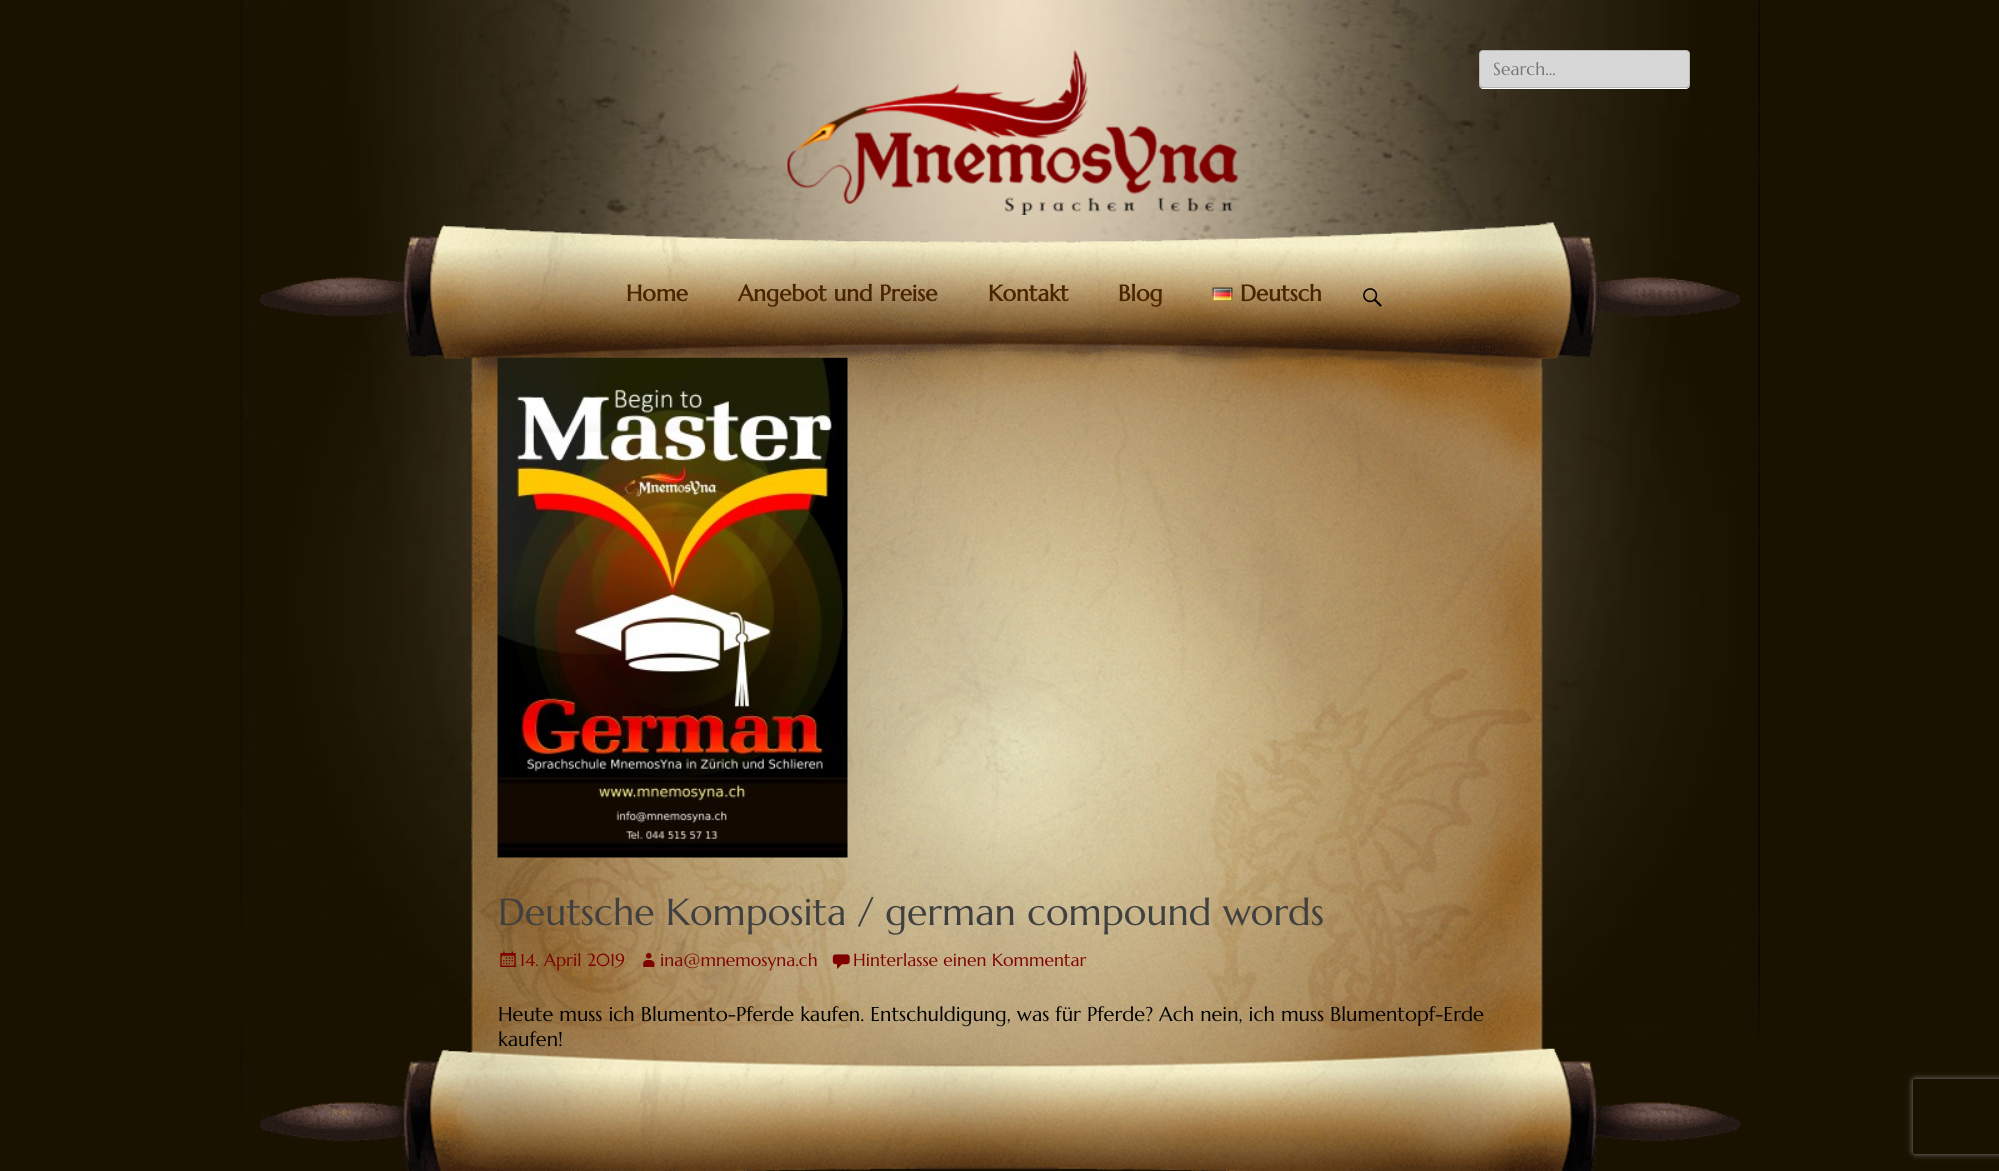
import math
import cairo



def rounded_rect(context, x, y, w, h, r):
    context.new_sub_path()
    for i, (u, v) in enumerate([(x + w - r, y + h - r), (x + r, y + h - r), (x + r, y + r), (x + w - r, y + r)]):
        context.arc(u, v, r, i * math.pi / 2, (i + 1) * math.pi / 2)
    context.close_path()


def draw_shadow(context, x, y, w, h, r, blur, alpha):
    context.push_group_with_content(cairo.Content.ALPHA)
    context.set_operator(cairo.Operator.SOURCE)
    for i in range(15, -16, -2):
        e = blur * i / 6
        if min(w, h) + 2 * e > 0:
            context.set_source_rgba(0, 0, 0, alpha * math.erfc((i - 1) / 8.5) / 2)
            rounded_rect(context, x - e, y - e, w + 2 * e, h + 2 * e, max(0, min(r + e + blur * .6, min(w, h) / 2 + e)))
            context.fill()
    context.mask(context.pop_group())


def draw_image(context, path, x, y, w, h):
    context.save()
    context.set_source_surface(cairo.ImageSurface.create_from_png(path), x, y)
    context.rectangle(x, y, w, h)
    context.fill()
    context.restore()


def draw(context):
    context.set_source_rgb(25 / 255, 18 / 255, 0)
    context.paint()
    draw_image(context, "images/1.png", 240, 0, 1520, 1119)
    draw_image(context, "images/2.png", 787, 50, 451, 165)
    context.set_source_rgb(1, 1, 1)
    context.new_path()
    context.move_to(1479, 85)
    context.curve_to(1479, 87, 1481, 89, 1483, 89)
    context.line_to(1686, 89)
    context.curve_to(1688, 89, 1690, 87, 1690, 85)
    context.line_to(1690, 84)
    context.curve_to(1690, 86, 1688, 88, 1686, 88)
    context.line_to(1482, 88)
    context.curve_to(1481, 88, 1480, 87, 1479, 85)
    context.close_path()
    context.fill()
    context.set_source_rgb(215 / 255, 215 / 255, 215 / 255)
    rounded_rect(context, 1479.5, 50.5, 210, 37, 3.5)
    context.fill_preserve()
    context.set_source_rgb(182 / 255, 182 / 255, 182 / 255)
    context.set_line_width(1)
    context.stroke()
    draw_image(context, "images/5.png", 260, 222, 1480, 949)
    draw_image(context, "images/3.png", 1212, 287, 21, 15)
    draw_image(context, "images/4.png", 1363, 288, 19, 19)
    draw_image(context, "images/6.png", 497, 357, 351, 501)
    draw_image(context, "images/7.png", 500, 951, 16, 16)
    draw_image(context, "images/8.png", 643, 953, 12, 14)
    draw_image(context, "images/9.png", 832, 954, 18, 15)
    context.save()
    context.set_fill_rule(cairo.FillRule.EVEN_ODD)
    context.new_path()
    context.move_to(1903, 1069)
    context.line_to(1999, 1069)
    context.line_to(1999, 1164)
    context.line_to(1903, 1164)
    context.close_path()
    context.move_to(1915.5, 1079)
    context.line_to(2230.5, 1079)
    context.curve_to(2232, 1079, 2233, 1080, 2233, 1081.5)
    context.line_to(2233, 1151.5)
    context.curve_to(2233, 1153, 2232, 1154, 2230.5, 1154)
    context.line_to(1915.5, 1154)
    context.curve_to(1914, 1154, 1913, 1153, 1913, 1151.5)
    context.line_to(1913, 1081.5)
    context.curve_to(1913, 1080, 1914, 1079, 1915.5, 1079)
    context.close_path()
    context.clip()
    context.set_source_rgb(128 / 255, 128 / 255, 128 / 255)
    draw_shadow(context, 1913, 1079, 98, 75, 2.5, 3, 1)
    context.restore()
    context.select_font_face("Marcellus")
    context.set_font_size(17.5)
    context.set_source_rgb(117 / 255, 117 / 255, 117 / 255)
    context.move_to(1493, 75)
    context.show_text("Search...")
    context.select_font_face("Marcellus", cairo.FontSlant.NORMAL, cairo.FontWeight.BOLD)
    context.set_font_size(22.5)
    context.set_source_rgb(75 / 255, 36 / 255, 0)
    context.move_to(626, 301)
    context.show_text("Home")
    context.move_to(738, 301)
    context.show_text("Angebot und Preise")
    context.move_to(988, 301)
    context.show_text("Kontakt")
    context.move_to(1118, 301)
    context.show_text("Blog")
    context.move_to(1240, 301)
    context.show_text("Deutsch")
    context.select_font_face("Marcellus")
    context.set_font_size(37.5)
    context.set_source_rgb(64 / 255, 64 / 255, 64 / 255)
    context.move_to(498, 925)
    context.show_text("Deutsche Komposita / german compound words")
    context.set_font_size(17.5)
    context.set_source_rgb(128 / 255, 0, 0)
    context.move_to(520, 966)
    context.show_text("14. April 2019")
    context.move_to(660, 966)
    context.show_text("ina@mnemosyna.ch")
    context.move_to(853, 966)
    context.show_text("Hinterlasse einen Kommentar")
    context.set_font_size(20)
    context.set_source_rgb(0, 0, 0)
    context.move_to(498, 1021)
    context.show_text("Heute muss ich Blumento-Pferde kaufen. Entschuldigung, was für Pferde? Ach nein, ich muss Blumentopf-Erde")
    context.move_to(498, 1046)
    context.show_text("kaufen!")


surface = cairo.ImageSurface(cairo.Format.RGB24, 1999, 1171)
context = cairo.Context(surface)
options = cairo.FontOptions()
options.set_hint_metrics(cairo.HintMetrics.OFF)
options.set_hint_style(cairo.HintStyle.NONE)
context.set_font_options(options)
context.set_miter_limit(4)
draw(context)
surface.write_to_png("out.png")
